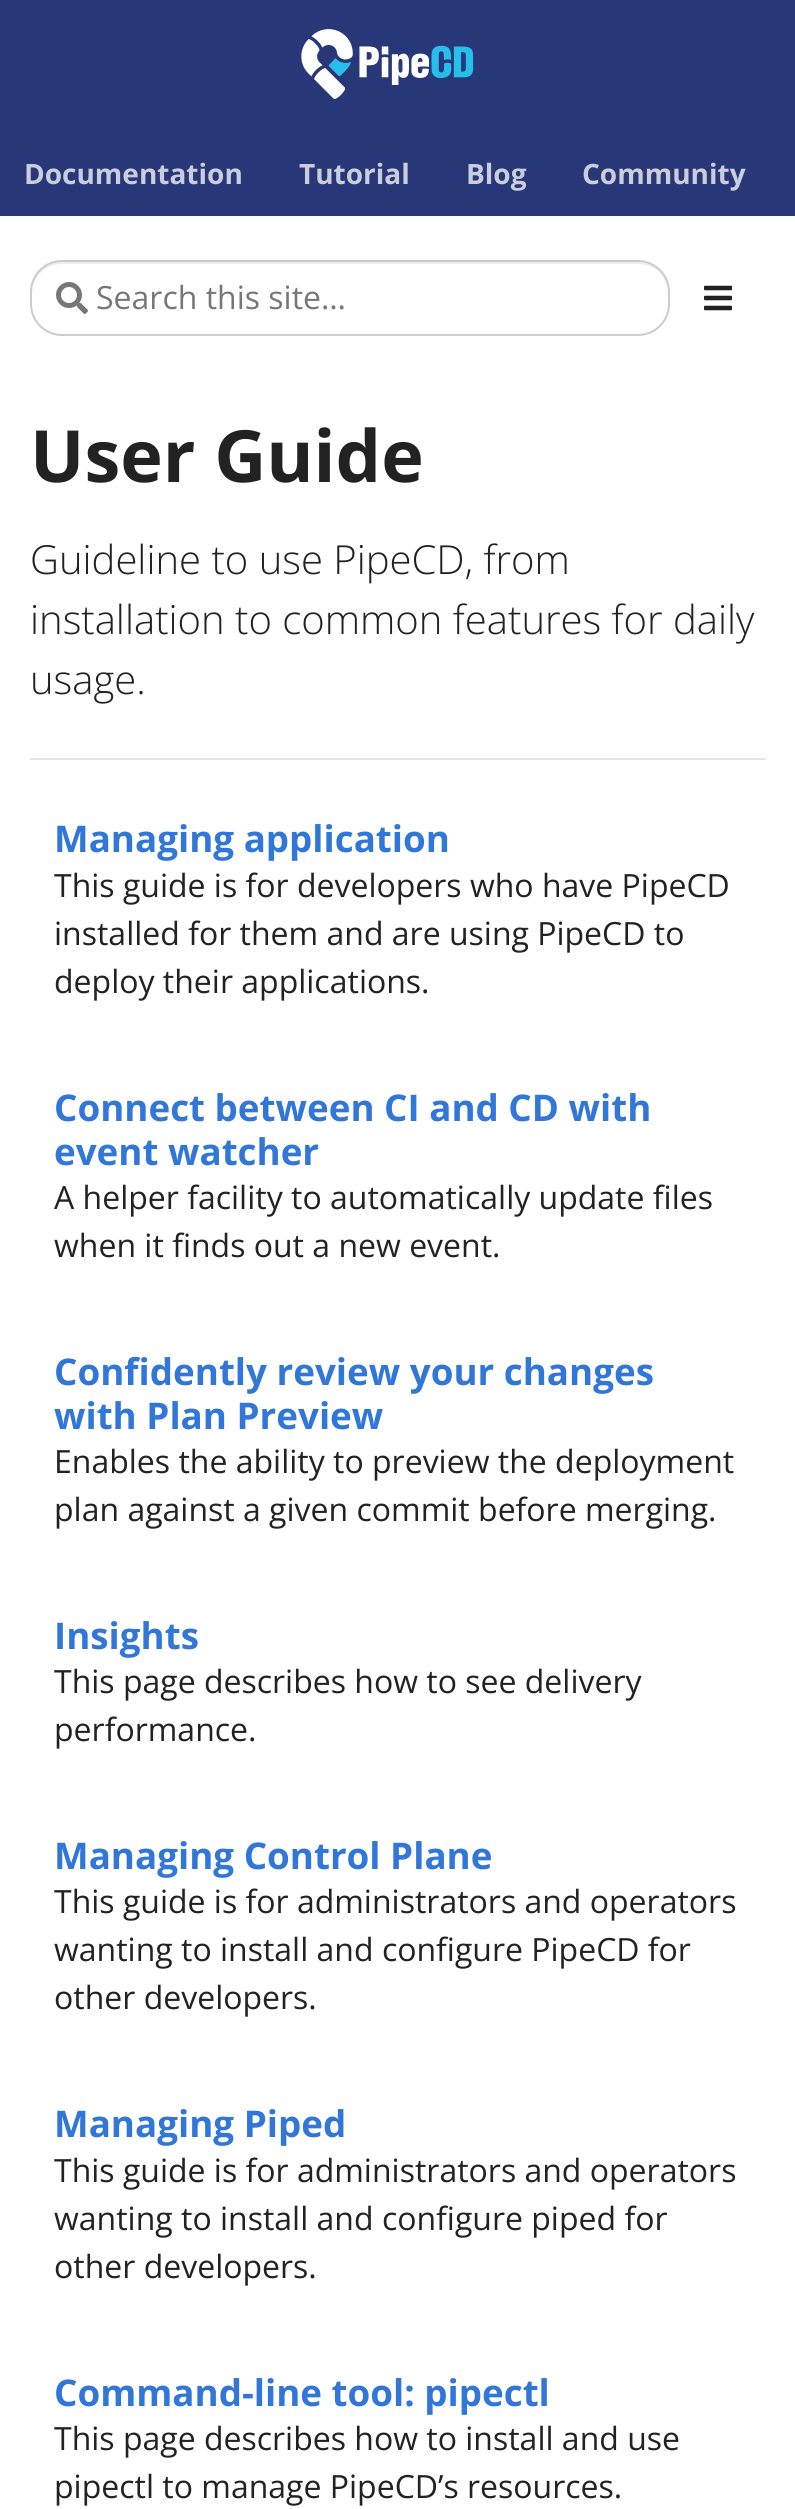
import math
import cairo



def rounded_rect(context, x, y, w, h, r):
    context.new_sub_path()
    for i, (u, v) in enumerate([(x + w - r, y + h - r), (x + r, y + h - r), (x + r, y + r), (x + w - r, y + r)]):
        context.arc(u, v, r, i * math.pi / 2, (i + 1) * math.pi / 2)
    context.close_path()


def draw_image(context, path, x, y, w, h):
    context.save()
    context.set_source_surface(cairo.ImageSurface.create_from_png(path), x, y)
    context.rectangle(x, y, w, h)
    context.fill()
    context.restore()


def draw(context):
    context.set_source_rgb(1, 1, 1)
    context.paint()
    context.set_source_rgb(40 / 255, 55 / 255, 120 / 255)
    context.rectangle(0, 0, 795, 216)
    context.fill()
    draw_image(context, "images/1.png", 301, 29, 173, 70)
    context.set_source_rgb(236 / 255, 236 / 255, 236 / 255)
    context.new_path()
    context.move_to(62, 264)
    context.line_to(638, 264)
    context.curve_to(655, 264, 668, 277, 668, 294)
    context.line_to(668, 292)
    context.curve_to(668, 275, 655, 262, 638, 262)
    context.line_to(62, 262)
    context.curve_to(45, 262, 32, 275, 32, 292)
    context.line_to(32, 294)
    context.curve_to(32, 277, 45, 264, 62, 264)
    context.close_path()
    context.fill()
    rounded_rect(context, 31, 261, 638, 74, 31)
    context.set_source_rgb(204 / 255, 204 / 255, 204 / 255)
    context.stroke()
    draw_image(context, "images/2.png", 56, 282, 32, 32)
    draw_image(context, "images/3.png", 704, 285, 28, 26)
    context.set_source_rgb(230 / 255, 230 / 255, 230 / 255)
    context.rectangle(30, 758, 736, 2)
    context.fill()
    context.select_font_face("Open Sans", cairo.FontSlant.NORMAL, cairo.FontWeight.BOLD)
    context.set_font_size(28)
    context.set_source_rgb(201 / 255, 205 / 255, 221 / 255)
    context.move_to(24, 184)
    context.show_text("Documentation")
    context.move_to(299, 184)
    context.show_text("Tutorial")
    context.move_to(466, 184)
    context.show_text("Blog")
    context.move_to(582, 184)
    context.show_text("Community")
    context.select_font_face("Open Sans")
    context.set_font_size(32)
    context.set_source_rgb(121 / 255, 118 / 255, 118 / 255)
    context.move_to(96, 309)
    context.show_text("Search this site…")
    context.select_font_face("Open Sans", cairo.FontSlant.NORMAL, cairo.FontWeight.BOLD)
    context.set_font_size(72)
    context.set_source_rgb(34 / 255, 34 / 255, 34 / 255)
    context.move_to(30, 482)
    context.show_text("User Guide")
    context.select_font_face("Open Sans Light")
    context.set_font_size(40)
    context.move_to(30, 574)
    context.show_text("Guideline to use PipeCD, from")
    context.move_to(30, 634)
    context.show_text("installation to common features for daily")
    context.move_to(30, 694)
    context.show_text("usage.")
    context.select_font_face("Open Sans", cairo.FontSlant.NORMAL, cairo.FontWeight.BOLD)
    context.set_font_size(36.75)
    context.set_source_rgb(49 / 255, 118 / 255, 217 / 255)
    context.move_to(54, 852)
    context.show_text("Managing application")
    context.select_font_face("Open Sans")
    context.set_font_size(32)
    context.set_source_rgb(34 / 255, 34 / 255, 34 / 255)
    context.move_to(54, 897)
    context.show_text("This guide is for developers who have PipeCD")
    context.move_to(54, 945)
    context.show_text("installed for them and are using PipeCD to")
    context.move_to(54, 993)
    context.show_text("deploy their applications.")
    context.select_font_face("Open Sans", cairo.FontSlant.NORMAL, cairo.FontWeight.BOLD)
    context.set_font_size(36.75)
    context.set_source_rgb(49 / 255, 118 / 255, 217 / 255)
    context.move_to(54, 1121)
    context.show_text("Connect between CI and CD with")
    context.move_to(54, 1165)
    context.show_text("event watcher")
    context.select_font_face("Open Sans")
    context.set_font_size(32)
    context.set_source_rgb(34 / 255, 34 / 255, 34 / 255)
    context.move_to(54, 1209)
    context.show_text("A helper facility to automatically update files")
    context.move_to(54, 1257)
    context.show_text("when it finds out a new event.")
    context.select_font_face("Open Sans", cairo.FontSlant.NORMAL, cairo.FontWeight.BOLD)
    context.set_font_size(36.75)
    context.set_source_rgb(49 / 255, 118 / 255, 217 / 255)
    context.move_to(54, 1385)
    context.show_text("Confidently review your changes")
    context.move_to(54, 1429)
    context.show_text("with Plan Preview")
    context.select_font_face("Open Sans")
    context.set_font_size(32)
    context.set_source_rgb(34 / 255, 34 / 255, 34 / 255)
    context.move_to(54, 1473)
    context.show_text("Enables the ability to preview the deployment")
    context.move_to(54, 1521)
    context.show_text("plan against a given commit before merging.")
    context.select_font_face("Open Sans", cairo.FontSlant.NORMAL, cairo.FontWeight.BOLD)
    context.set_font_size(36.75)
    context.set_source_rgb(49 / 255, 118 / 255, 217 / 255)
    context.move_to(54, 1649)
    context.show_text("Insights")
    context.select_font_face("Open Sans")
    context.set_font_size(32)
    context.set_source_rgb(34 / 255, 34 / 255, 34 / 255)
    context.move_to(54, 1693)
    context.show_text("This page describes how to see delivery")
    context.move_to(54, 1741)
    context.show_text("performance.")
    context.select_font_face("Open Sans", cairo.FontSlant.NORMAL, cairo.FontWeight.BOLD)
    context.set_font_size(36.75)
    context.set_source_rgb(49 / 255, 118 / 255, 217 / 255)
    context.move_to(54, 1869)
    context.show_text("Managing Control Plane")
    context.select_font_face("Open Sans")
    context.set_font_size(32)
    context.set_source_rgb(34 / 255, 34 / 255, 34 / 255)
    context.move_to(54, 1913)
    context.show_text("This guide is for administrators and operators")
    context.move_to(54, 1961)
    context.show_text("wanting to install and configure PipeCD for")
    context.move_to(54, 2009)
    context.show_text("other developers.")
    context.select_font_face("Open Sans", cairo.FontSlant.NORMAL, cairo.FontWeight.BOLD)
    context.set_font_size(36.75)
    context.set_source_rgb(49 / 255, 118 / 255, 217 / 255)
    context.move_to(54, 2137)
    context.show_text("Managing Piped")
    context.select_font_face("Open Sans")
    context.set_font_size(32)
    context.set_source_rgb(34 / 255, 34 / 255, 34 / 255)
    context.move_to(54, 2182)
    context.show_text("This guide is for administrators and operators")
    context.move_to(54, 2230)
    context.show_text("wanting to install and configure piped for")
    context.move_to(54, 2278)
    context.show_text("other developers.")
    context.select_font_face("Open Sans", cairo.FontSlant.NORMAL, cairo.FontWeight.BOLD)
    context.set_font_size(36.75)
    context.set_source_rgb(49 / 255, 118 / 255, 217 / 255)
    context.move_to(54, 2406)
    context.show_text("Command-line tool: pipectl")
    context.select_font_face("Open Sans")
    context.set_font_size(32)
    context.set_source_rgb(34 / 255, 34 / 255, 34 / 255)
    context.move_to(54, 2450)
    context.show_text("This page describes how to install and use")
    context.move_to(54, 2498)
    context.show_text("pipectl to manage PipeCD’s resources.")


surface = cairo.ImageSurface(cairo.Format.RGB24, 795, 2509)
context = cairo.Context(surface)
options = cairo.FontOptions()
options.set_hint_metrics(cairo.HintMetrics.OFF)
options.set_hint_style(cairo.HintStyle.NONE)
context.set_font_options(options)
context.set_miter_limit(4)
draw(context)
surface.write_to_png("out.png")
